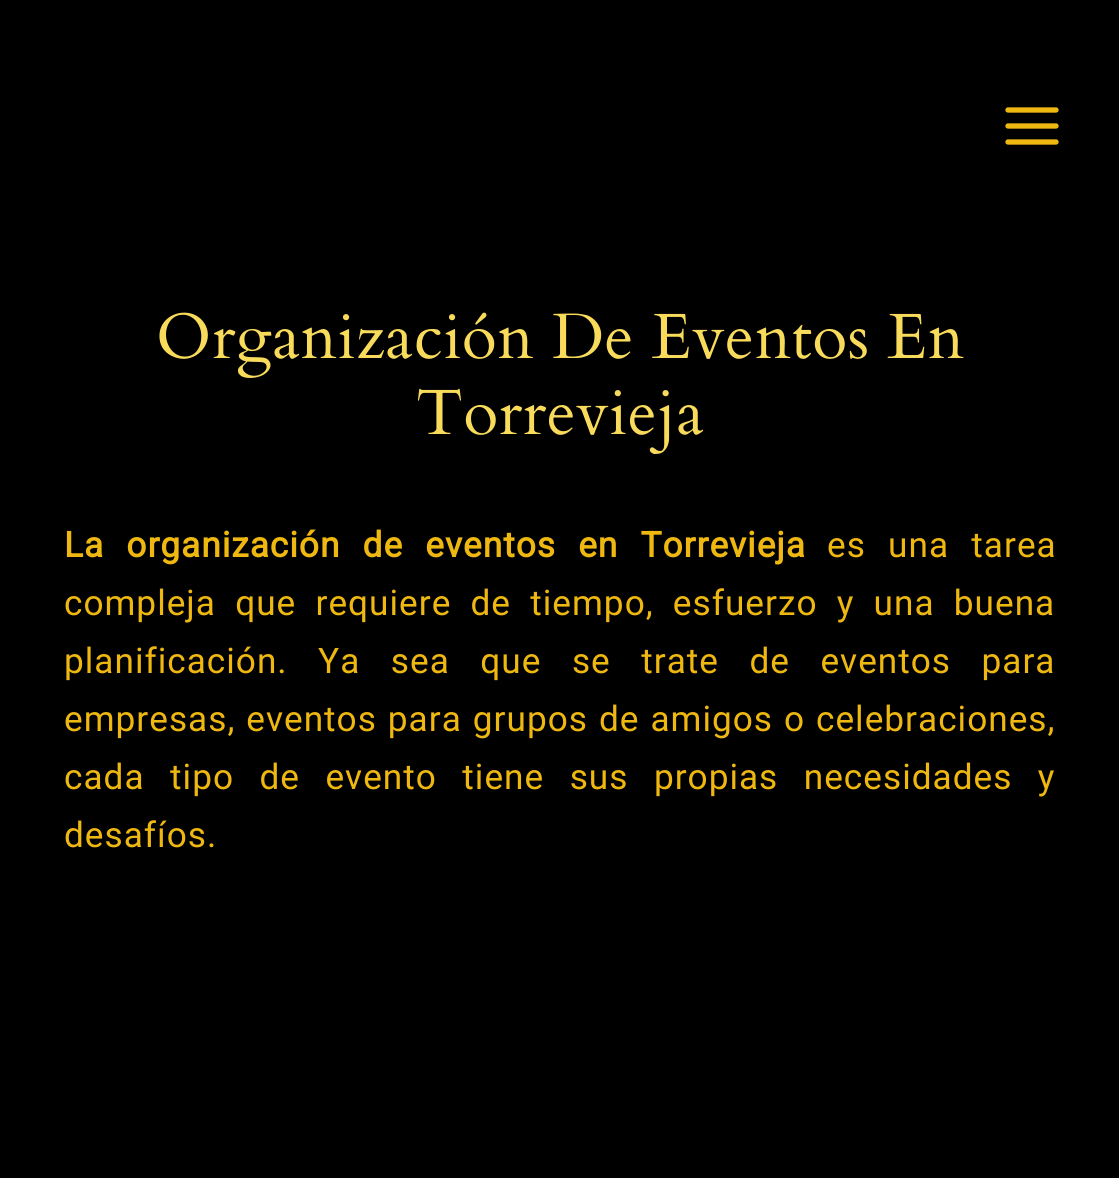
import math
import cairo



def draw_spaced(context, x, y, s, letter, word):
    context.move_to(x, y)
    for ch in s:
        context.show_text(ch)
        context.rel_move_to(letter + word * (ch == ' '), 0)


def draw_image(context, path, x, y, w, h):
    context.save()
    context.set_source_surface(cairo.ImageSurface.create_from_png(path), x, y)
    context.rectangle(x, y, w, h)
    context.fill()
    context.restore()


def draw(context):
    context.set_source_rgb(0, 0, 0)
    context.paint()
    draw_image(context, "images/1.png", 1005, 107, 54, 38)
    context.select_font_face("Cardo")
    context.set_font_size(64)
    context.set_source_rgb(249 / 255, 219 / 255, 92 / 255)
    draw_spaced(context, 156, 358, "Organización De Eventos En", 0.6, 0)
    draw_spaced(context, 416, 434, "Torrevieja", 0.6, 0)
    context.select_font_face("Roboto", cairo.FontSlant.NORMAL, cairo.FontWeight.BOLD)
    context.set_font_size(35.2)
    context.set_source_rgb(239 / 255, 184 / 255, 16 / 255)
    draw_spaced(context, 64, 557, "La organización de eventos en Torrevieja", 1, 12.5)
    context.select_font_face("Roboto")
    draw_spaced(context, 827, 557, "es una tarea", 1, 12.5)
    draw_spaced(context, 64, 615, "compleja que requiere de tiempo, esfuerzo y una buena", 1, 9.5)
    draw_spaced(context, 64, 673, "planificación. Ya sea que se trate de eventos para", 1, 20.75)
    draw_spaced(context, 64, 731, "empresas, eventos para grupos de amigos o celebraciones,", 1, 1.25)
    draw_spaced(context, 64, 789, "cada tipo de evento tiene sus propias necesidades y", 1, 15.75)
    draw_spaced(context, 64, 847, "desafíos.", 1, 0)


surface = cairo.ImageSurface(cairo.Format.RGB24, 1119, 1178)
context = cairo.Context(surface)
options = cairo.FontOptions()
options.set_hint_metrics(cairo.HintMetrics.OFF)
options.set_hint_style(cairo.HintStyle.NONE)
context.set_font_options(options)
context.set_miter_limit(4)
draw(context)
surface.write_to_png("out.png")
